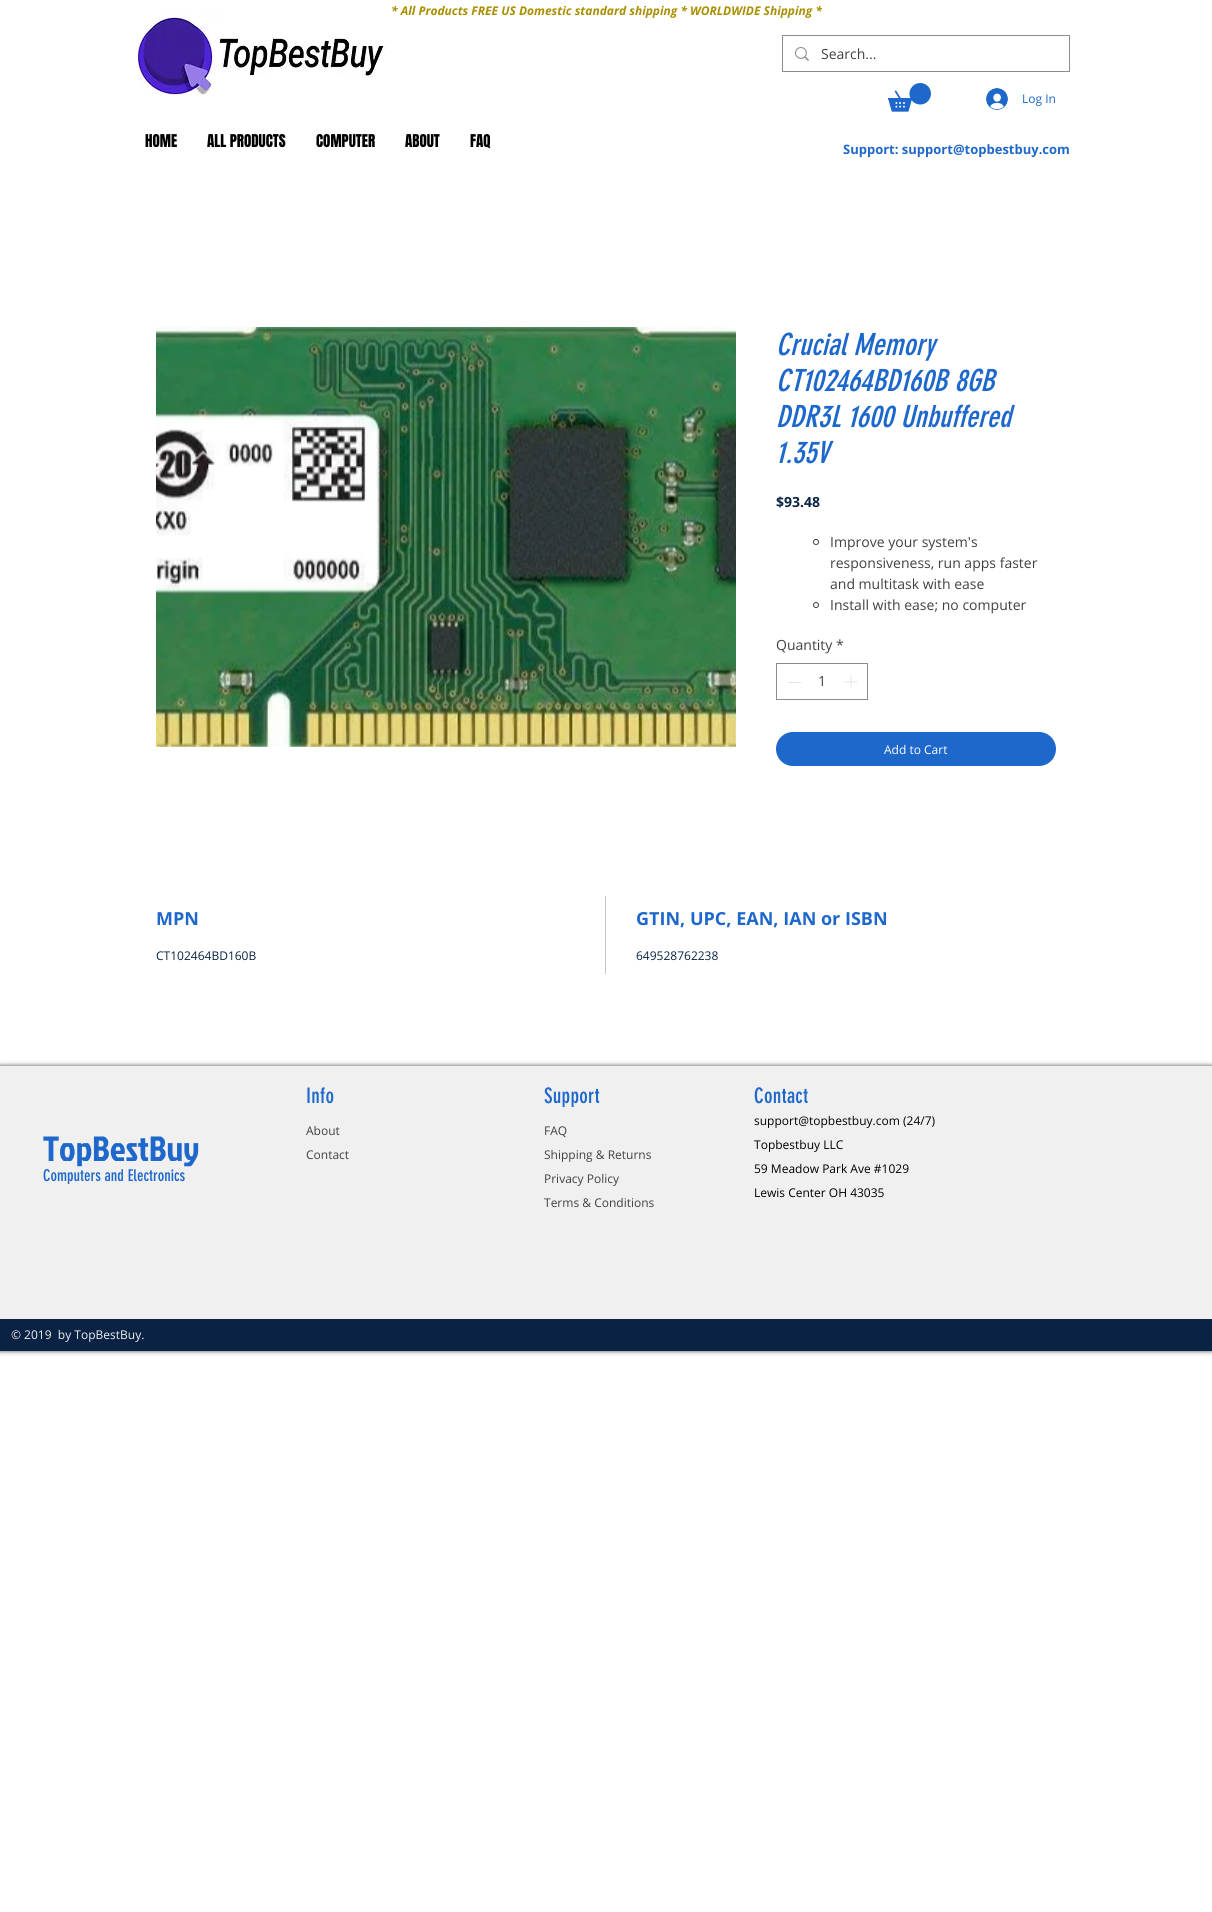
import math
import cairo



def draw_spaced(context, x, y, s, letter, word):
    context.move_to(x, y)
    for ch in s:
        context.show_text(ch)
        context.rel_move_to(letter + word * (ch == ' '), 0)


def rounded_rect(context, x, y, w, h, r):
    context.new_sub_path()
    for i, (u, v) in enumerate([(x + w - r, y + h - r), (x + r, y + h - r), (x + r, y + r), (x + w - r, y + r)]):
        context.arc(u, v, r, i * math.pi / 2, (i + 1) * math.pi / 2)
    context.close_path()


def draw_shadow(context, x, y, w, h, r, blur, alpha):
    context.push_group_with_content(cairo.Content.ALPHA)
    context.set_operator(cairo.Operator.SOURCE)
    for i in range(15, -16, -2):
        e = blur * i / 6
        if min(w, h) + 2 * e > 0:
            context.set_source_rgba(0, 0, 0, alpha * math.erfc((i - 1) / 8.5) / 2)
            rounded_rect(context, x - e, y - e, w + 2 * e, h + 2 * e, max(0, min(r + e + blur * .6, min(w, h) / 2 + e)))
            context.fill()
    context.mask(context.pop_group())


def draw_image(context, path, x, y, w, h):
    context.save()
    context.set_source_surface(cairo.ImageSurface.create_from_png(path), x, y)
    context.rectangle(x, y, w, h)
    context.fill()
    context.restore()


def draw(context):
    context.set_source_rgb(1, 1, 1)
    context.paint()
    draw_image(context, "images/1.png", 137, 13, 249, 82)
    context.rectangle(782.5, 35.5, 287, 36)
    context.set_source_rgb(141 / 255, 141 / 255, 141 / 255)
    context.set_line_width(1)
    context.stroke()
    draw_image(context, "images/2.png", 795, 47, 14, 14)
    draw_image(context, "images/3.png", 888, 83, 43, 29)
    draw_image(context, "images/4.png", 986, 88, 22, 22)
    draw_image(context, "images/5.png", 156, 327, 580, 420)
    context.arc(816, 542, 2.5, 0, 2 * math.pi)
    context.set_source_rgb(65 / 255, 65 / 255, 65 / 255)
    context.stroke()
    context.arc(816, 605, 2.5, 0, 2 * math.pi)
    context.stroke()
    context.rectangle(776.5, 663.5, 91, 36)
    context.set_source_rgb(141 / 255, 141 / 255, 141 / 255)
    context.stroke()
    context.set_source_rgb(227 / 255, 227 / 255, 227 / 255)
    context.rectangle(788, 682, 13, 1)
    context.fill()
    draw_image(context, "images/6.png", 844, 675, 14, 14)
    context.set_source_rgb(30 / 255, 104 / 255, 203 / 255)
    rounded_rect(context, 776, 732, 280, 34, 17)
    context.fill()
    context.set_source_rgb(199 / 255, 199 / 255, 199 / 255)
    context.rectangle(605, 896, 1, 78)
    context.fill()
    context.set_source_rgb(0, 0, 0)
    draw_shadow(context, 0, 1066, 1212, 285, 0, 2.5, 0.7)
    context.set_source_rgb(240 / 255, 240 / 255, 240 / 255)
    context.rectangle(0, 1066, 1212, 253)
    context.fill()
    context.set_source_rgb(10 / 255, 35 / 255, 68 / 255)
    context.rectangle(0, 1319, 1212, 32)
    context.fill()
    context.select_font_face("Open Sans", cairo.FontSlant.ITALIC, cairo.FontWeight.BOLD)
    context.set_font_size(12)
    context.set_source_rgb(170 / 255, 143 / 255, 0)
    context.move_to(391, 15)
    context.show_text("* All Products FREE US Domestic standard shipping * WORLDWIDE Shipping *")
    context.select_font_face("Open Sans")
    context.set_font_size(14)
    context.set_source_rgb(65 / 255, 65 / 255, 65 / 255)
    context.move_to(821, 59)
    context.show_text("Search...")
    context.set_font_size(12)
    context.set_source_rgb(30 / 255, 104 / 255, 203 / 255)
    context.move_to(1022, 103)
    context.show_text("Log In")
    context.select_font_face("Anton")
    context.set_font_size(15)
    context.set_source_rgb(0, 0, 0)
    context.move_to(145, 147)
    context.show_text("HOME")
    context.move_to(207, 147)
    context.show_text("ALL PRODUCTS")
    context.move_to(316, 147)
    context.show_text("COMPUTER")
    context.move_to(405, 147)
    context.show_text("ABOUT")
    context.move_to(470, 147)
    context.show_text("FAQ")
    context.select_font_face("Open Sans", cairo.FontSlant.NORMAL, cairo.FontWeight.BOLD)
    context.set_font_size(13)
    context.set_source_rgb(30 / 255, 104 / 255, 203 / 255)
    context.move_to(843, 154)
    context.show_text("Support: support@topbestbuy.com")
    context.select_font_face("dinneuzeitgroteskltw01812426", cairo.FontSlant.ITALIC)
    context.set_font_size(30)
    context.move_to(776, 355)
    context.show_text("Crucial Memory")
    context.move_to(776, 391)
    context.show_text("CT102464BD160B 8GB")
    context.move_to(776, 427)
    context.show_text("DDR3L 1600 Unbuffered")
    context.move_to(776, 463)
    context.show_text("1.35V")
    context.select_font_face("Open Sans", cairo.FontSlant.NORMAL, cairo.FontWeight.BOLD)
    context.set_font_size(14)
    context.set_source_rgb(10 / 255, 35 / 255, 68 / 255)
    context.move_to(776, 507)
    context.show_text("$93.48")
    context.select_font_face("Open Sans")
    context.set_source_rgb(65 / 255, 65 / 255, 65 / 255)
    context.move_to(830, 547)
    context.show_text("Improve your system's")
    context.move_to(830, 568)
    context.show_text("responsiveness, run apps faster")
    context.move_to(830, 589)
    context.show_text("and multitask with ease")
    context.move_to(830, 610)
    context.show_text("Install with ease; no computer")
    context.move_to(776, 650)
    context.show_text("Quantity")
    context.move_to(836, 650)
    context.show_text("*")
    context.move_to(818, 686)
    context.show_text("1")
    context.set_font_size(12)
    context.set_source_rgb(1, 1, 1)
    context.move_to(884, 754)
    context.show_text("Add to Cart")
    context.select_font_face("Open Sans", cairo.FontSlant.NORMAL, cairo.FontWeight.BOLD)
    context.set_font_size(18)
    context.set_source_rgb(30 / 255, 104 / 255, 203 / 255)
    context.move_to(156, 925)
    context.show_text("MPN")
    context.select_font_face("Open Sans")
    context.set_font_size(12)
    context.set_source_rgb(10 / 255, 35 / 255, 68 / 255)
    context.move_to(156, 960)
    context.show_text("CT102464BD160B")
    context.select_font_face("Open Sans", cairo.FontSlant.NORMAL, cairo.FontWeight.BOLD)
    context.set_font_size(18)
    context.set_source_rgb(30 / 255, 104 / 255, 203 / 255)
    context.move_to(636, 925)
    context.show_text("GTIN, UPC, EAN, IAN or ISBN")
    context.select_font_face("Open Sans")
    context.set_font_size(12)
    context.set_source_rgb(10 / 255, 35 / 255, 68 / 255)
    context.move_to(636, 960)
    context.show_text("649528762238")
    context.select_font_face("Jockey One")
    context.set_font_size(35)
    context.set_source_rgb(30 / 255, 104 / 255, 203 / 255)
    context.move_to(43, 1161)
    context.show_text("TopBestBuy")
    context.select_font_face("dinneuzeitgroteskltw01812426")
    context.set_font_size(16)
    context.move_to(43, 1181)
    context.show_text("Computers and Electronics")
    context.set_font_size(21)
    draw_spaced(context, 306, 1103, "Info", 0.25, 0)
    context.select_font_face("Open Sans")
    context.set_font_size(12)
    context.set_source_rgb(65 / 255, 65 / 255, 65 / 255)
    context.move_to(306, 1135)
    context.show_text("About")
    context.move_to(306, 1159)
    context.show_text("Contact")
    context.select_font_face("dinneuzeitgroteskltw01812426")
    context.set_font_size(21)
    context.set_source_rgb(30 / 255, 104 / 255, 203 / 255)
    draw_spaced(context, 544, 1103, "Support", 0.25, 0)
    context.select_font_face("Open Sans")
    context.set_font_size(12)
    context.set_source_rgb(65 / 255, 65 / 255, 65 / 255)
    context.move_to(544, 1135)
    context.show_text("FAQ")
    context.move_to(544, 1159)
    context.show_text("Shipping & Returns")
    context.move_to(544, 1183)
    context.show_text("Privacy Policy")
    context.move_to(544, 1207)
    context.show_text("Terms & Conditions")
    context.select_font_face("dinneuzeitgroteskltw01812426")
    context.set_font_size(21)
    context.set_source_rgb(30 / 255, 104 / 255, 203 / 255)
    draw_spaced(context, 754, 1103, "Contact", 0.25, 0)
    context.select_font_face("Open Sans")
    context.set_font_size(12)
    context.set_source_rgb(0, 0, 0)
    context.move_to(754, 1125)
    context.show_text("support@topbestbuy.com (24/7)")
    context.move_to(754, 1149)
    context.show_text("Topbestbuy LLC")
    context.move_to(754, 1173)
    context.show_text("59 Meadow Park Ave #1029")
    context.move_to(754, 1197)
    context.show_text("Lewis Center OH 43035")
    context.set_source_rgb(240 / 255, 240 / 255, 240 / 255)
    context.move_to(11, 1339)
    context.show_text("© 2019  by TopBestBuy.")


surface = cairo.ImageSurface(cairo.Format.RGB24, 1212, 1912)
context = cairo.Context(surface)
options = cairo.FontOptions()
options.set_hint_metrics(cairo.HintMetrics.OFF)
options.set_hint_style(cairo.HintStyle.NONE)
context.set_font_options(options)
context.set_miter_limit(4)
draw(context)
surface.write_to_png("out.png")
